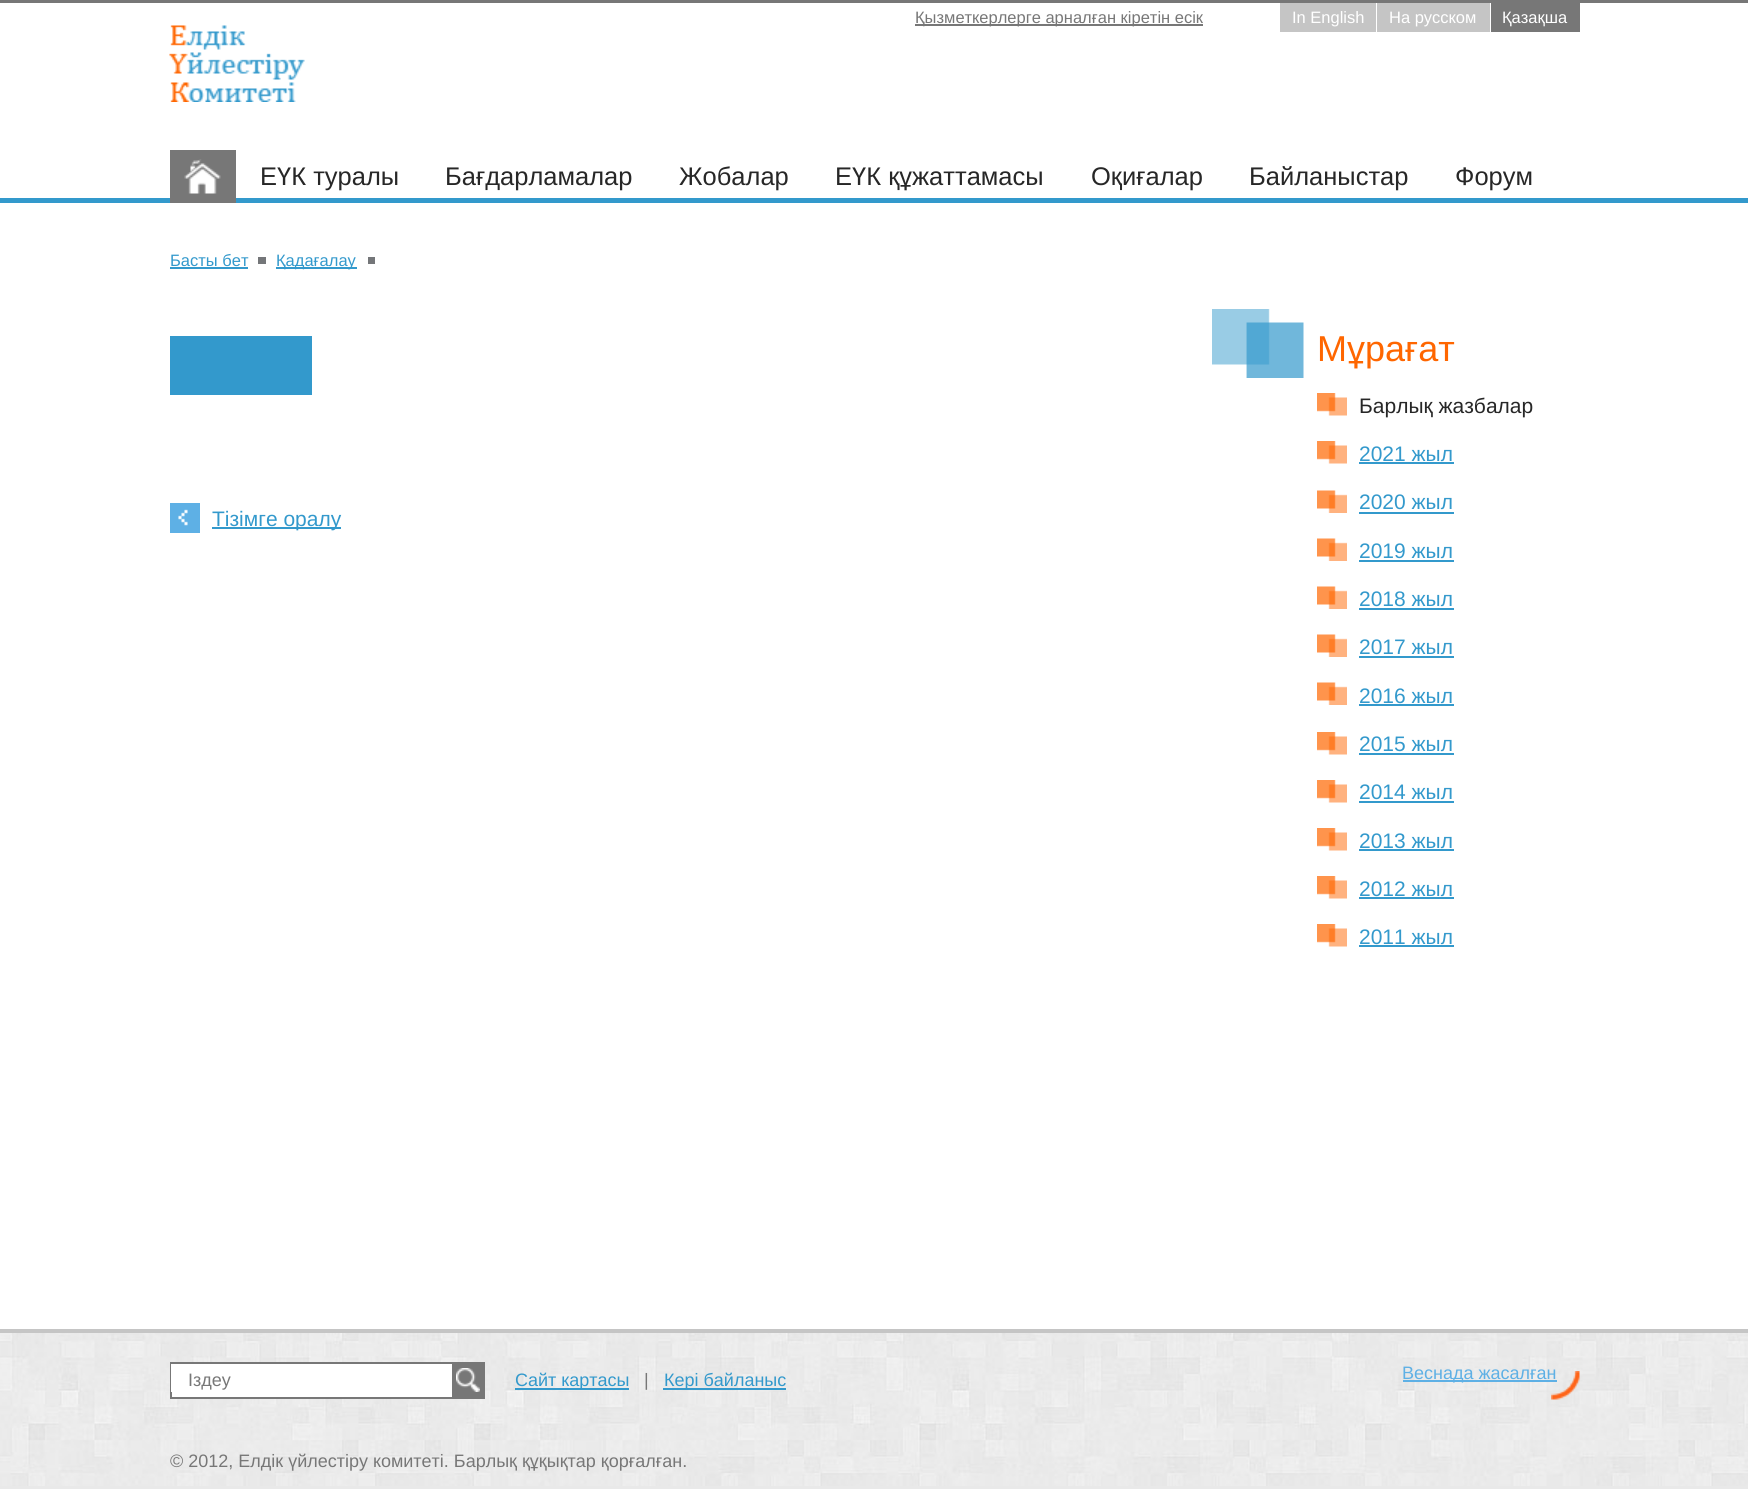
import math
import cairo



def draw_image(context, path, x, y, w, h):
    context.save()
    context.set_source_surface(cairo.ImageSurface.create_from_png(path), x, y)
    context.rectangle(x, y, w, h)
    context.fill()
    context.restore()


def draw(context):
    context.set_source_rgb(1, 1, 1)
    context.paint()
    context.set_source_rgb(119 / 255, 119 / 255, 119 / 255)
    context.rectangle(0, 0, 1748, 3)
    context.fill()
    context.rectangle(915, 24, 288, 2)
    context.fill()
    context.set_source_rgb(197 / 255, 197 / 255, 197 / 255)
    context.rectangle(1280, 3, 96, 29)
    context.fill()
    context.rectangle(1377, 3, 113, 29)
    context.fill()
    context.set_source_rgb(119 / 255, 119 / 255, 119 / 255)
    context.rectangle(1491, 3, 89, 29)
    context.fill()
    draw_image(context, "images/1.png", 169, 25, 136, 77)
    context.set_source_rgb(51 / 255, 153 / 255, 204 / 255)
    context.rectangle(0, 198, 1748, 5)
    context.fill()
    context.set_source_rgb(119 / 255, 119 / 255, 119 / 255)
    context.rectangle(170, 150, 66, 53)
    context.fill()
    draw_image(context, "images/2.png", 184, 159, 37, 35)
    context.set_source_rgb(51 / 255, 153 / 255, 204 / 255)
    context.rectangle(170, 267, 78, 2)
    context.fill()
    context.set_source_rgb(116 / 255, 118 / 255, 121 / 255)
    context.rectangle(258, 257, 8, 7)
    context.fill()
    context.set_source_rgb(51 / 255, 153 / 255, 204 / 255)
    context.rectangle(276, 267, 81, 2)
    context.fill()
    context.set_source_rgb(116 / 255, 118 / 255, 121 / 255)
    context.rectangle(368, 257, 7, 7)
    context.fill()
    context.set_source_rgb(51 / 255, 153 / 255, 204 / 255)
    context.rectangle(170, 336, 142, 59)
    context.fill()
    context.set_source_rgb(94 / 255, 176 / 255, 229 / 255)
    context.rectangle(170, 503, 30, 30)
    context.fill()
    draw_image(context, "images/3.png", 178, 509, 10, 17)
    context.set_source_rgb(51 / 255, 153 / 255, 204 / 255)
    context.rectangle(212, 527, 129, 2)
    context.fill()
    draw_image(context, "images/4.png", 1212, 309, 92, 69)
    draw_image(context, "images/5.png", 1317, 393, 30, 23)
    draw_image(context, "images/5.png", 1317, 441, 30, 23)
    context.rectangle(1359, 462, 95, 2)
    context.fill()
    draw_image(context, "images/6.png", 1317, 490, 30, 23)
    context.rectangle(1359, 512, 95, 2)
    context.fill()
    draw_image(context, "images/6.png", 1317, 538, 30, 23)
    context.rectangle(1359, 560, 95, 2)
    context.fill()
    draw_image(context, "images/6.png", 1317, 586, 30, 23)
    context.rectangle(1359, 608, 95, 2)
    context.fill()
    draw_image(context, "images/6.png", 1317, 634, 30, 23)
    context.rectangle(1359, 656, 95, 2)
    context.fill()
    draw_image(context, "images/6.png", 1317, 682, 30, 23)
    context.rectangle(1359, 704, 95, 2)
    context.fill()
    draw_image(context, "images/5.png", 1317, 732, 30, 23)
    context.rectangle(1359, 753, 95, 2)
    context.fill()
    draw_image(context, "images/5.png", 1317, 780, 30, 23)
    context.rectangle(1359, 801, 95, 2)
    context.fill()
    draw_image(context, "images/5.png", 1317, 828, 30, 23)
    context.rectangle(1359, 849, 95, 2)
    context.fill()
    draw_image(context, "images/5.png", 1317, 876, 30, 23)
    context.rectangle(1359, 897, 95, 2)
    context.fill()
    draw_image(context, "images/5.png", 1317, 924, 30, 23)
    context.rectangle(1359, 945, 95, 2)
    context.fill()
    context.set_source_rgb(233 / 255, 233 / 255, 233 / 255)
    context.rectangle(0, 1486, 1748, 3)
    context.fill()
    draw_image(context, "images/7.png", 0, 1333, 1748, 153)
    context.set_source_rgb(197 / 255, 197 / 255, 197 / 255)
    context.rectangle(0, 1329, 1748, 4)
    context.fill()
    context.set_source_rgb(1, 1, 1)
    context.rectangle(172, 1392, 280, 5)
    context.fill()
    context.set_source_rgb(119 / 255, 119 / 255, 119 / 255)
    context.rectangle(452, 1362, 33, 2)
    context.fill()
    context.rectangle(483, 1362, 2, 36)
    context.fill()
    context.rectangle(452, 1397, 33, 2)
    context.fill()
    context.rectangle(452, 1362, 2, 36)
    context.fill()
    context.rectangle(170, 1362, 283, 2)
    context.fill()
    context.rectangle(170, 1397, 283, 2)
    context.fill()
    context.rectangle(170, 1362, 2, 36)
    context.fill()
    context.set_source_rgb(1, 1, 1)
    context.rectangle(171, 1364, 281, 28)
    context.fill()
    context.set_source_rgb(119 / 255, 119 / 255, 119 / 255)
    context.rectangle(454, 1364, 29, 33)
    context.fill()
    draw_image(context, "images/8.png", 456, 1368, 24, 24)
    context.set_source_rgb(51 / 255, 153 / 255, 204 / 255)
    context.rectangle(515, 1388, 114, 2)
    context.fill()
    context.rectangle(663, 1388, 123, 2)
    context.fill()
    draw_image(context, "images/9.png", 1551, 1371, 29, 29)
    context.set_source_rgb(94 / 255, 176 / 255, 229 / 255)
    context.rectangle(1403, 1380, 154, 2)
    context.fill()
    context.select_font_face("Liberation Sans")
    context.set_font_size(16.5)
    context.set_source_rgb(119 / 255, 119 / 255, 119 / 255)
    context.move_to(915, 23)
    context.show_text("Қызметкерлерге арналған кіретін есік")
    context.set_source_rgb(1, 1, 1)
    context.move_to(1292, 23)
    context.show_text("In English")
    context.move_to(1389, 23)
    context.show_text("На русском")
    context.move_to(1502, 23)
    context.show_text("Қазақша")
    context.set_font_size(25.5)
    context.set_source_rgb(39 / 255, 39 / 255, 39 / 255)
    context.move_to(260, 185)
    context.show_text("ЕҮК туралы")
    context.move_to(445, 185)
    context.show_text("Бағдарламалар")
    context.move_to(679, 185)
    context.show_text("Жобалар")
    context.move_to(835, 185)
    context.show_text("ЕҮК құжаттамасы")
    context.move_to(1091, 185)
    context.show_text("Оқиғалар")
    context.move_to(1249, 185)
    context.show_text("Байланыстар")
    context.move_to(1455, 185)
    context.show_text("Форум")
    context.set_font_size(16.5)
    context.set_source_rgb(51 / 255, 153 / 255, 204 / 255)
    context.move_to(170, 266)
    context.show_text("Басты бет")
    context.move_to(276, 266)
    context.show_text("Қадағалау")
    context.set_font_size(21)
    context.move_to(212, 526)
    context.show_text("Тізімге оралу")
    context.set_font_size(36)
    context.set_source_rgb(1, 102 / 255, 0)
    context.move_to(1317, 361)
    context.show_text("Мұрағат")
    context.set_font_size(21)
    context.set_source_rgb(39 / 255, 39 / 255, 39 / 255)
    context.move_to(1359, 413)
    context.show_text("Барлық жазбалар")
    context.set_source_rgb(51 / 255, 153 / 255, 204 / 255)
    context.move_to(1359, 461)
    context.show_text("2021 жыл")
    context.move_to(1359, 509)
    context.show_text("2020 жыл")
    context.move_to(1359, 558)
    context.show_text("2019 жыл")
    context.move_to(1359, 606)
    context.show_text("2018 жыл")
    context.move_to(1359, 654)
    context.show_text("2017 жыл")
    context.move_to(1359, 703)
    context.show_text("2016 жыл")
    context.move_to(1359, 751)
    context.show_text("2015 жыл")
    context.move_to(1359, 799)
    context.show_text("2014 жыл")
    context.move_to(1359, 848)
    context.show_text("2013 жыл")
    context.move_to(1359, 896)
    context.show_text("2012 жыл")
    context.move_to(1359, 944)
    context.show_text("2011 жыл")
    context.set_font_size(18)
    context.set_source_rgb(119 / 255, 119 / 255, 119 / 255)
    context.move_to(188, 1386)
    context.show_text("Іздеу")
    context.set_source_rgb(51 / 255, 153 / 255, 204 / 255)
    context.move_to(515, 1386)
    context.show_text("Сайт картасы")
    context.set_source_rgb(119 / 255, 119 / 255, 119 / 255)
    context.move_to(644, 1386)
    context.show_text("|")
    context.set_source_rgb(51 / 255, 153 / 255, 204 / 255)
    context.move_to(664, 1386)
    context.show_text("Кері байланыс")
    context.set_source_rgb(119 / 255, 119 / 255, 119 / 255)
    context.move_to(170, 1467)
    context.show_text("© 2012, Елдік үйлестіру комитеті. Барлық құқықтар қорғалған.")
    context.set_source_rgb(94 / 255, 176 / 255, 229 / 255)
    context.move_to(1402, 1379)
    context.show_text("Веснада жасалған")


surface = cairo.ImageSurface(cairo.Format.RGB24, 1748, 1489)
context = cairo.Context(surface)
options = cairo.FontOptions()
options.set_hint_metrics(cairo.HintMetrics.OFF)
options.set_hint_style(cairo.HintStyle.NONE)
context.set_font_options(options)
context.set_miter_limit(4)
draw(context)
surface.write_to_png("out.png")
